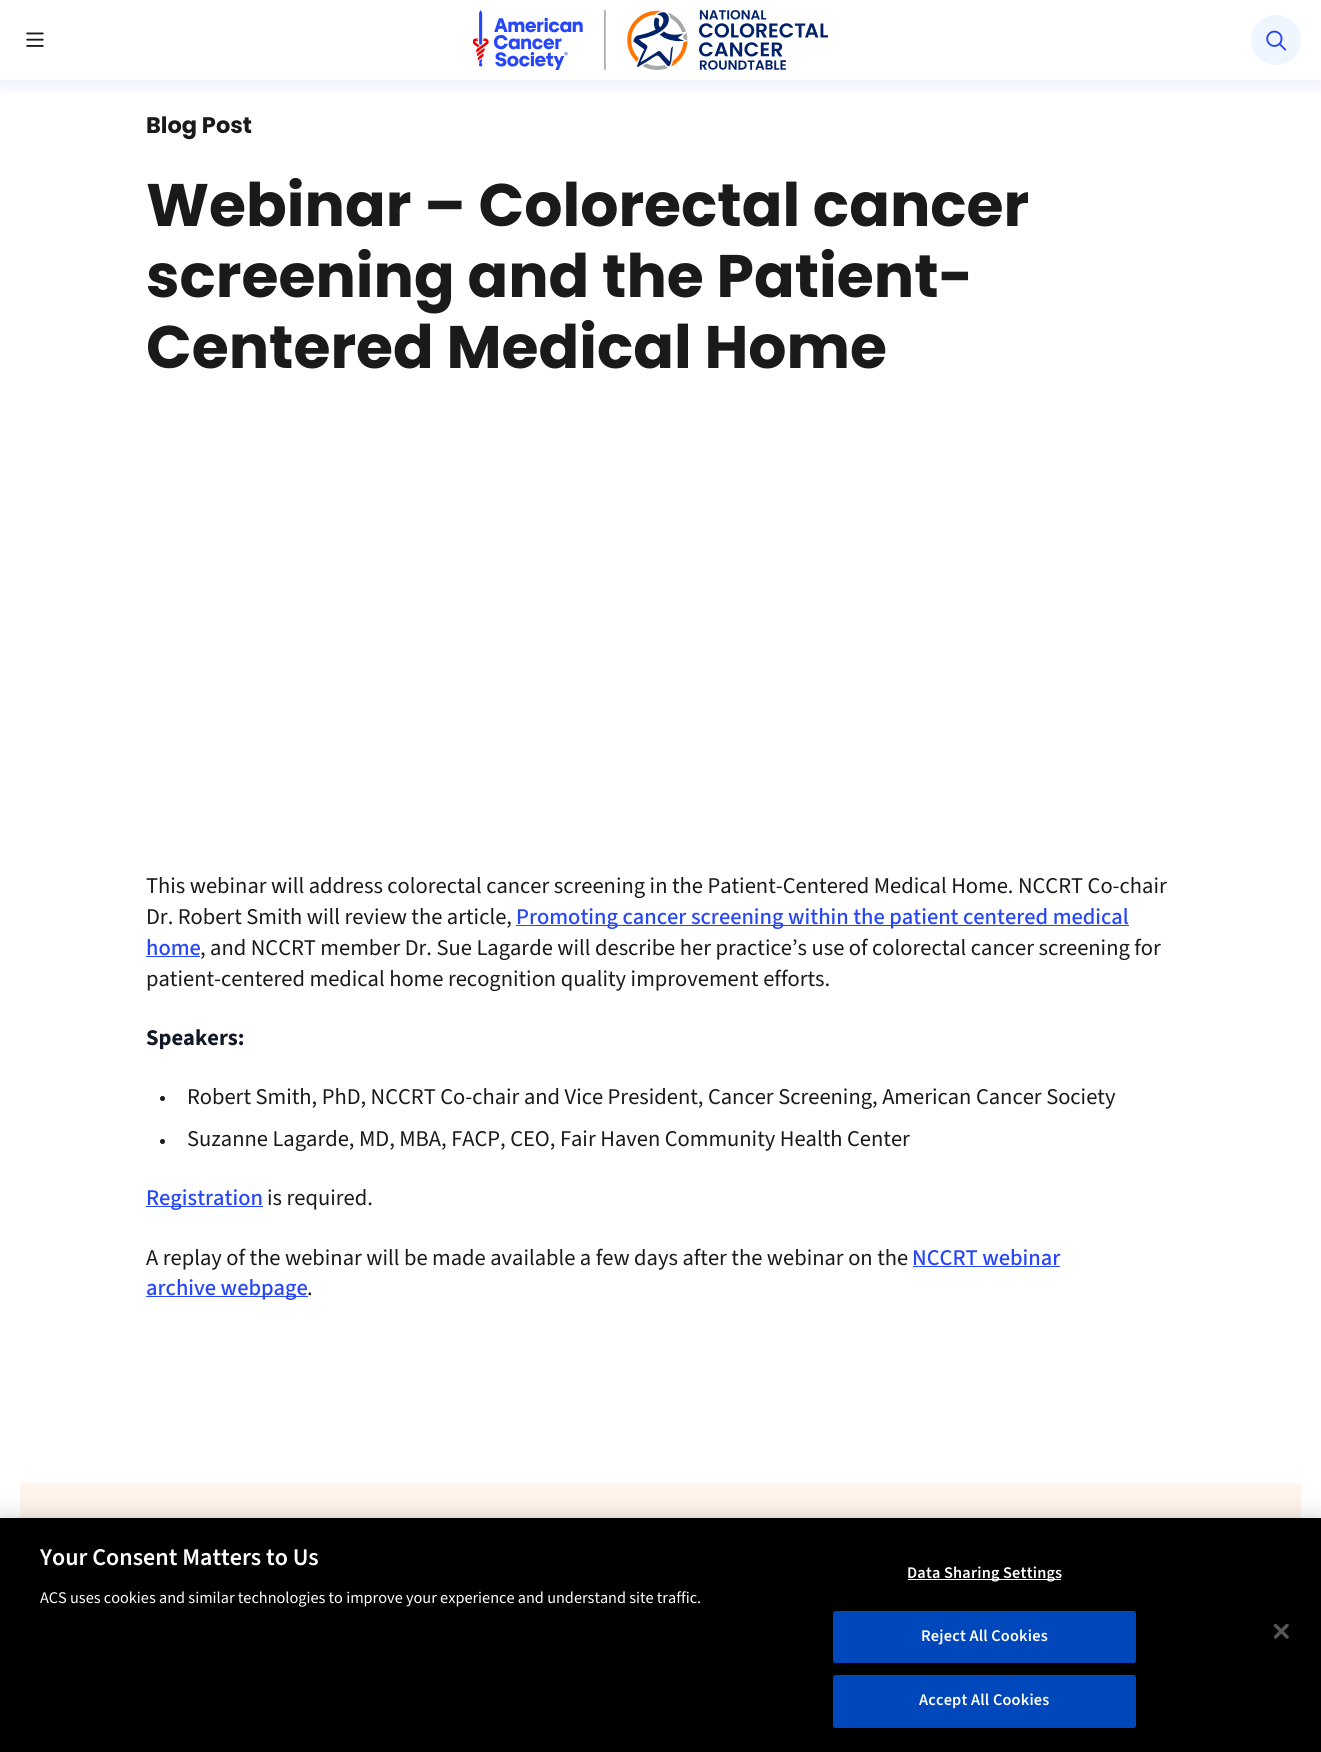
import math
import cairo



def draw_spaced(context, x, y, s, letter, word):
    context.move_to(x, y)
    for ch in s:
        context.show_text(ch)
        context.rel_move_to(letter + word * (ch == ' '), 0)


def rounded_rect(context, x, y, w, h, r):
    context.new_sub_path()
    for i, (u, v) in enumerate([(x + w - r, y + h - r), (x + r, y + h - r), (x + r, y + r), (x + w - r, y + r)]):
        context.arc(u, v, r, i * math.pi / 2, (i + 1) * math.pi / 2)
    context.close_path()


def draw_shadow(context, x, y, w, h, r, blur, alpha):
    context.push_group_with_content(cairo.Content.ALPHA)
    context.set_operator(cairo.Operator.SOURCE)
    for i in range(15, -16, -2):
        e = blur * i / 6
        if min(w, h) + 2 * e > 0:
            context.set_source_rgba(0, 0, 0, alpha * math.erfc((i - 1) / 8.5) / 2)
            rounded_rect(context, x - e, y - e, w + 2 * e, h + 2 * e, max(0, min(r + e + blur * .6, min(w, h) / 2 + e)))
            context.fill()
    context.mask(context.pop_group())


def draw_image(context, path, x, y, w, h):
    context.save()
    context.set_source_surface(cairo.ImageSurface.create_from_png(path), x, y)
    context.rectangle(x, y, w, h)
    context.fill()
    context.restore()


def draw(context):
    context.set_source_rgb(1, 1, 1)
    context.paint()
    context.save()
    context.rectangle(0, 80, 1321, 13)
    context.clip()
    context.set_source_rgb(39 / 255, 70 / 255, 248 / 255)
    draw_shadow(context, 0, 5, 1321, 80, 0, 10, 0.1)
    context.restore()
    draw_image(context, "images/1.png", 26, 32, 18, 15)
    draw_image(context, "images/2.png", 473, 10, 355, 60)
    context.set_source_rgb(239 / 255, 246 / 255, 1)
    context.arc(1276, 40, 25, 0, 2 * math.pi)
    context.fill()
    draw_image(context, "images/3.png", 1266, 30, 21, 21)
    context.set_source_rgb(39 / 255, 70 / 255, 248 / 255)
    context.rectangle(516, 925, 613, 1)
    context.fill()
    context.rectangle(146, 956, 54, 1)
    context.fill()
    context.set_source_rgb(26 / 255, 26 / 255, 26 / 255)
    context.arc(162.5, 1098.5, 2.5, 0, 2 * math.pi)
    context.fill()
    context.arc(162.5, 1141.5, 2.5, 0, 2 * math.pi)
    context.fill()
    context.set_source_rgb(39 / 255, 70 / 255, 248 / 255)
    context.rectangle(146, 1206, 117, 1)
    context.fill()
    context.rectangle(913, 1266, 147, 1)
    context.fill()
    context.rectangle(146, 1296, 162, 1)
    context.fill()
    context.set_source_rgb(1, 244 / 255, 235 / 255)
    context.rectangle(20, 1483, 1281, 35)
    context.fill()
    context.set_source_rgb(0, 0, 0)
    draw_shadow(context, 0, 1518, 1321, 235, 0, 11, 0.2)
    context.set_source_rgb(0, 0, 0)
    context.rectangle(0, 1518, 1321, 234)
    context.fill()
    context.set_source_rgb(1, 1, 1)
    context.rectangle(908, 1579, 153, 1)
    context.fill()
    context.set_source_rgb(0, 71 / 255, 187 / 255)
    rounded_rect(context, 833.5, 1611.5, 302, 51, 2)
    context.fill_preserve()
    context.set_line_width(1)
    context.stroke()
    rounded_rect(context, 833.5, 1675.5, 302, 52, 2)
    context.fill_preserve()
    context.stroke()
    draw_image(context, "images/4.png", 1274, 1624, 15, 15)
    context.select_font_face("Poppins", cairo.FontSlant.NORMAL, cairo.FontWeight.BOLD)
    context.set_font_size(22.5)
    context.set_source_rgb(26 / 255, 26 / 255, 26 / 255)
    context.move_to(146, 133)
    context.show_text("Blog Post")
    context.set_font_size(60)
    context.move_to(146, 226)
    context.show_text("Webinar – Colorectal cancer")
    context.move_to(146, 297)
    context.show_text("screening and the Patient-")
    context.move_to(146, 368)
    context.show_text("Centered Medical Home")
    context.select_font_face("Source Sans 3")
    context.set_font_size(22.5)
    context.move_to(146, 893)
    context.show_text("This webinar will address colorectal cancer screening in the Patient-Centered Medical Home. NCCRT Co-chair")
    context.move_to(146, 924)
    context.show_text("Dr. Robert Smith will review the article,")
    context.select_font_face("Source Sans 3 Medium")
    context.set_source_rgb(39 / 255, 70 / 255, 248 / 255)
    context.move_to(516, 924)
    context.show_text("Promoting cancer screening within the patient centered medical")
    context.move_to(146, 955)
    context.show_text("home")
    context.select_font_face("Source Sans 3")
    context.set_source_rgb(26 / 255, 26 / 255, 26 / 255)
    context.move_to(200, 955)
    context.show_text(", and NCCRT member Dr. Sue Lagarde will describe her practice’s use of colorectal cancer screening for")
    context.move_to(146, 986)
    context.show_text("patient-centered medical home recognition quality improvement efforts.")
    context.select_font_face("Source Sans 3", cairo.FontSlant.NORMAL, cairo.FontWeight.BOLD)
    context.set_source_rgb(17 / 255, 24 / 255, 39 / 255)
    context.move_to(146, 1045)
    context.show_text("Speakers:")
    context.select_font_face("Source Sans 3")
    context.set_source_rgb(26 / 255, 26 / 255, 26 / 255)
    context.move_to(187, 1104)
    context.show_text("Robert Smith, PhD, NCCRT Co-chair and Vice President, Cancer Screening, American Cancer Society")
    context.move_to(187, 1146)
    context.show_text("Suzanne Lagarde, MD, MBA, FACP, CEO, Fair Haven Community Health Center")
    context.select_font_face("Source Sans 3 Medium")
    context.set_source_rgb(39 / 255, 70 / 255, 248 / 255)
    context.move_to(146, 1205)
    context.show_text("Registration")
    context.select_font_face("Source Sans 3")
    context.set_source_rgb(26 / 255, 26 / 255, 26 / 255)
    context.move_to(267, 1205)
    context.show_text("is required.")
    context.move_to(146, 1265)
    context.show_text("A replay of the webinar will be made available a few days after the webinar on the")
    context.select_font_face("Source Sans 3 Medium")
    context.set_source_rgb(39 / 255, 70 / 255, 248 / 255)
    context.move_to(912, 1265)
    context.show_text("NCCRT webinar")
    context.move_to(146, 1295)
    context.show_text("archive webpage")
    context.select_font_face("Source Sans 3")
    context.set_source_rgb(26 / 255, 26 / 255, 26 / 255)
    context.move_to(307, 1295)
    context.show_text(".")
    context.select_font_face("Source Sans 3 SemiBold")
    context.set_font_size(24)
    context.set_source_rgb(1, 1, 1)
    context.move_to(40, 1565)
    context.show_text("Your Consent Matters to Us")
    context.select_font_face("Source Sans 3")
    context.set_font_size(16.25)
    context.move_to(40, 1603)
    context.show_text("ACS uses cookies and similar technologies to improve your experience and understand site traffic.")
    context.select_font_face("Source Sans 3 SemiBold")
    draw_spaced(context, 907, 1578, "Data Sharing Settings", 0.2, 0)
    draw_spaced(context, 921, 1641, "Reject All Cookies", 0.2, 0)
    draw_spaced(context, 919, 1705, "Accept All Cookies", 0.2, 0)


surface = cairo.ImageSurface(cairo.Format.RGB24, 1321, 1752)
context = cairo.Context(surface)
options = cairo.FontOptions()
options.set_hint_metrics(cairo.HintMetrics.OFF)
options.set_hint_style(cairo.HintStyle.NONE)
context.set_font_options(options)
context.set_miter_limit(4)
draw(context)
surface.write_to_png("out.png")
